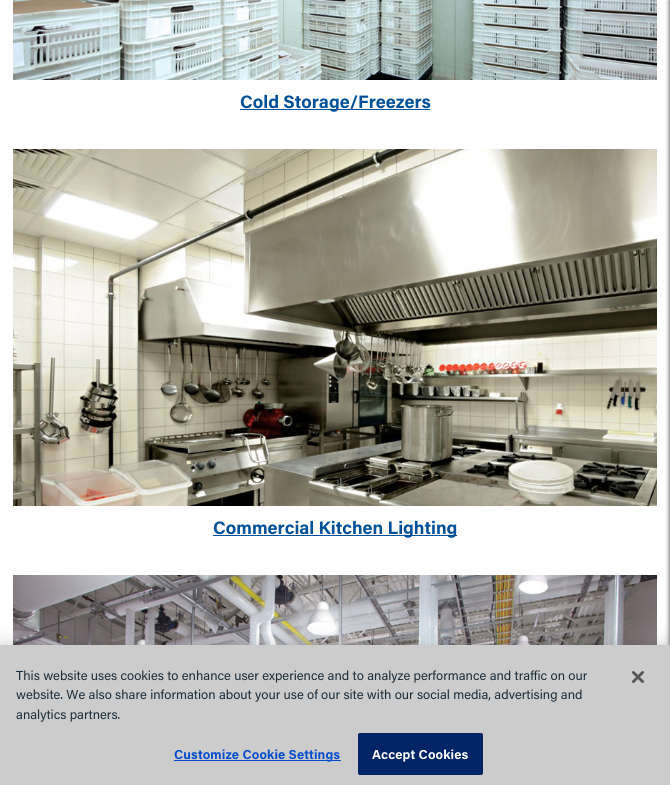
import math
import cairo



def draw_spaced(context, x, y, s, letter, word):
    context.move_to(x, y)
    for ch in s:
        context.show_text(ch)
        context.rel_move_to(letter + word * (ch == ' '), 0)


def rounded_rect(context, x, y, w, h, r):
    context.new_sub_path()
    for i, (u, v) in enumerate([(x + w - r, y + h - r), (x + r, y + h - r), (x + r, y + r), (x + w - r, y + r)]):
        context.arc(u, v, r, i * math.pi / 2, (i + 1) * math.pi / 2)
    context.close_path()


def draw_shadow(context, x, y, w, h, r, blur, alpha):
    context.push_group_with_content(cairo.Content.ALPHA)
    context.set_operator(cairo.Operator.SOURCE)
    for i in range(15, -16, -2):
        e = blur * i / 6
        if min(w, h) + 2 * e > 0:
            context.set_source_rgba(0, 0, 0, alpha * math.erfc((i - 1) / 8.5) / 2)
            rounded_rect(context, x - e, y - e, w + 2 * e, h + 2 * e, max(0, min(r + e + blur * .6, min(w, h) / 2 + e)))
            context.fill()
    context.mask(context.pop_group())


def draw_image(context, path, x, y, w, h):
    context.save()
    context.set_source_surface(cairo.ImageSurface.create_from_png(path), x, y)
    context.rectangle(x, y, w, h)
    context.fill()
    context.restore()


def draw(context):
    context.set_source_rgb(1, 1, 1)
    context.paint()
    draw_image(context, "images/1.png", 13, 0, 644, 80)
    context.set_source_rgb(0, 80 / 255, 153 / 255)
    context.rectangle(240, 109, 190, 1)
    context.fill()
    draw_image(context, "images/2.png", 13, 149, 644, 357)
    context.rectangle(213, 535, 244, 1)
    context.fill()
    draw_image(context, "images/3.png", 13, 575, 644, 70)
    context.set_source_rgb(51 / 255, 51 / 255, 51 / 255)
    draw_shadow(context, 670, 0, 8, 785, 0, 2.5, 1)
    context.set_source_rgb(0, 0, 0)
    draw_shadow(context, 0, 645, 670, 140, 0, 9, 0.2)
    context.set_source_rgb(204 / 255, 204 / 255, 204 / 255)
    context.rectangle(0, 645, 670, 140)
    context.fill()
    context.set_source_rgb(3 / 255, 76 / 255, 206 / 255)
    context.rectangle(174, 760, 167, 1)
    context.fill()
    context.set_source_rgb(0, 36 / 255, 101 / 255)
    rounded_rect(context, 358.5, 733.5, 124, 41, 1.5)
    context.fill_preserve()
    context.set_line_width(1)
    context.stroke()
    draw_image(context, "images/4.png", 632, 671, 12, 12)
    context.select_font_face("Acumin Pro", cairo.FontSlant.NORMAL, cairo.FontWeight.BOLD)
    context.set_font_size(18)
    context.set_source_rgb(0, 80 / 255, 153 / 255)
    context.move_to(240, 108)
    context.show_text("Cold Storage/Freezers")
    context.move_to(213, 534)
    context.show_text("Commercial Kitchen Lighting")
    context.select_font_face("Acumin Pro")
    context.set_font_size(13)
    context.set_source_rgb(27 / 255, 45 / 255, 58 / 255)
    context.move_to(16, 680)
    context.show_text("This website uses cookies to enhance user experience and to analyze performance and traffic on our")
    context.move_to(16, 699)
    context.show_text("website. We also share information about your use of our site with our social media, advertising and")
    context.move_to(16, 719)
    context.show_text("analytics partners.")
    context.select_font_face("Acumin Pro", cairo.FontSlant.NORMAL, cairo.FontWeight.BOLD)
    context.set_source_rgb(3 / 255, 76 / 255, 206 / 255)
    draw_spaced(context, 174, 759, "Customize Cookie Settings", 0.1, 0)
    context.set_source_rgb(1, 1, 1)
    draw_spaced(context, 372, 759, "Accept Cookies", 0.1, 0)


surface = cairo.ImageSurface(cairo.Format.RGB24, 670, 785)
context = cairo.Context(surface)
options = cairo.FontOptions()
options.set_hint_metrics(cairo.HintMetrics.OFF)
options.set_hint_style(cairo.HintStyle.NONE)
context.set_font_options(options)
context.set_miter_limit(4)
draw(context)
surface.write_to_png("out.png")
